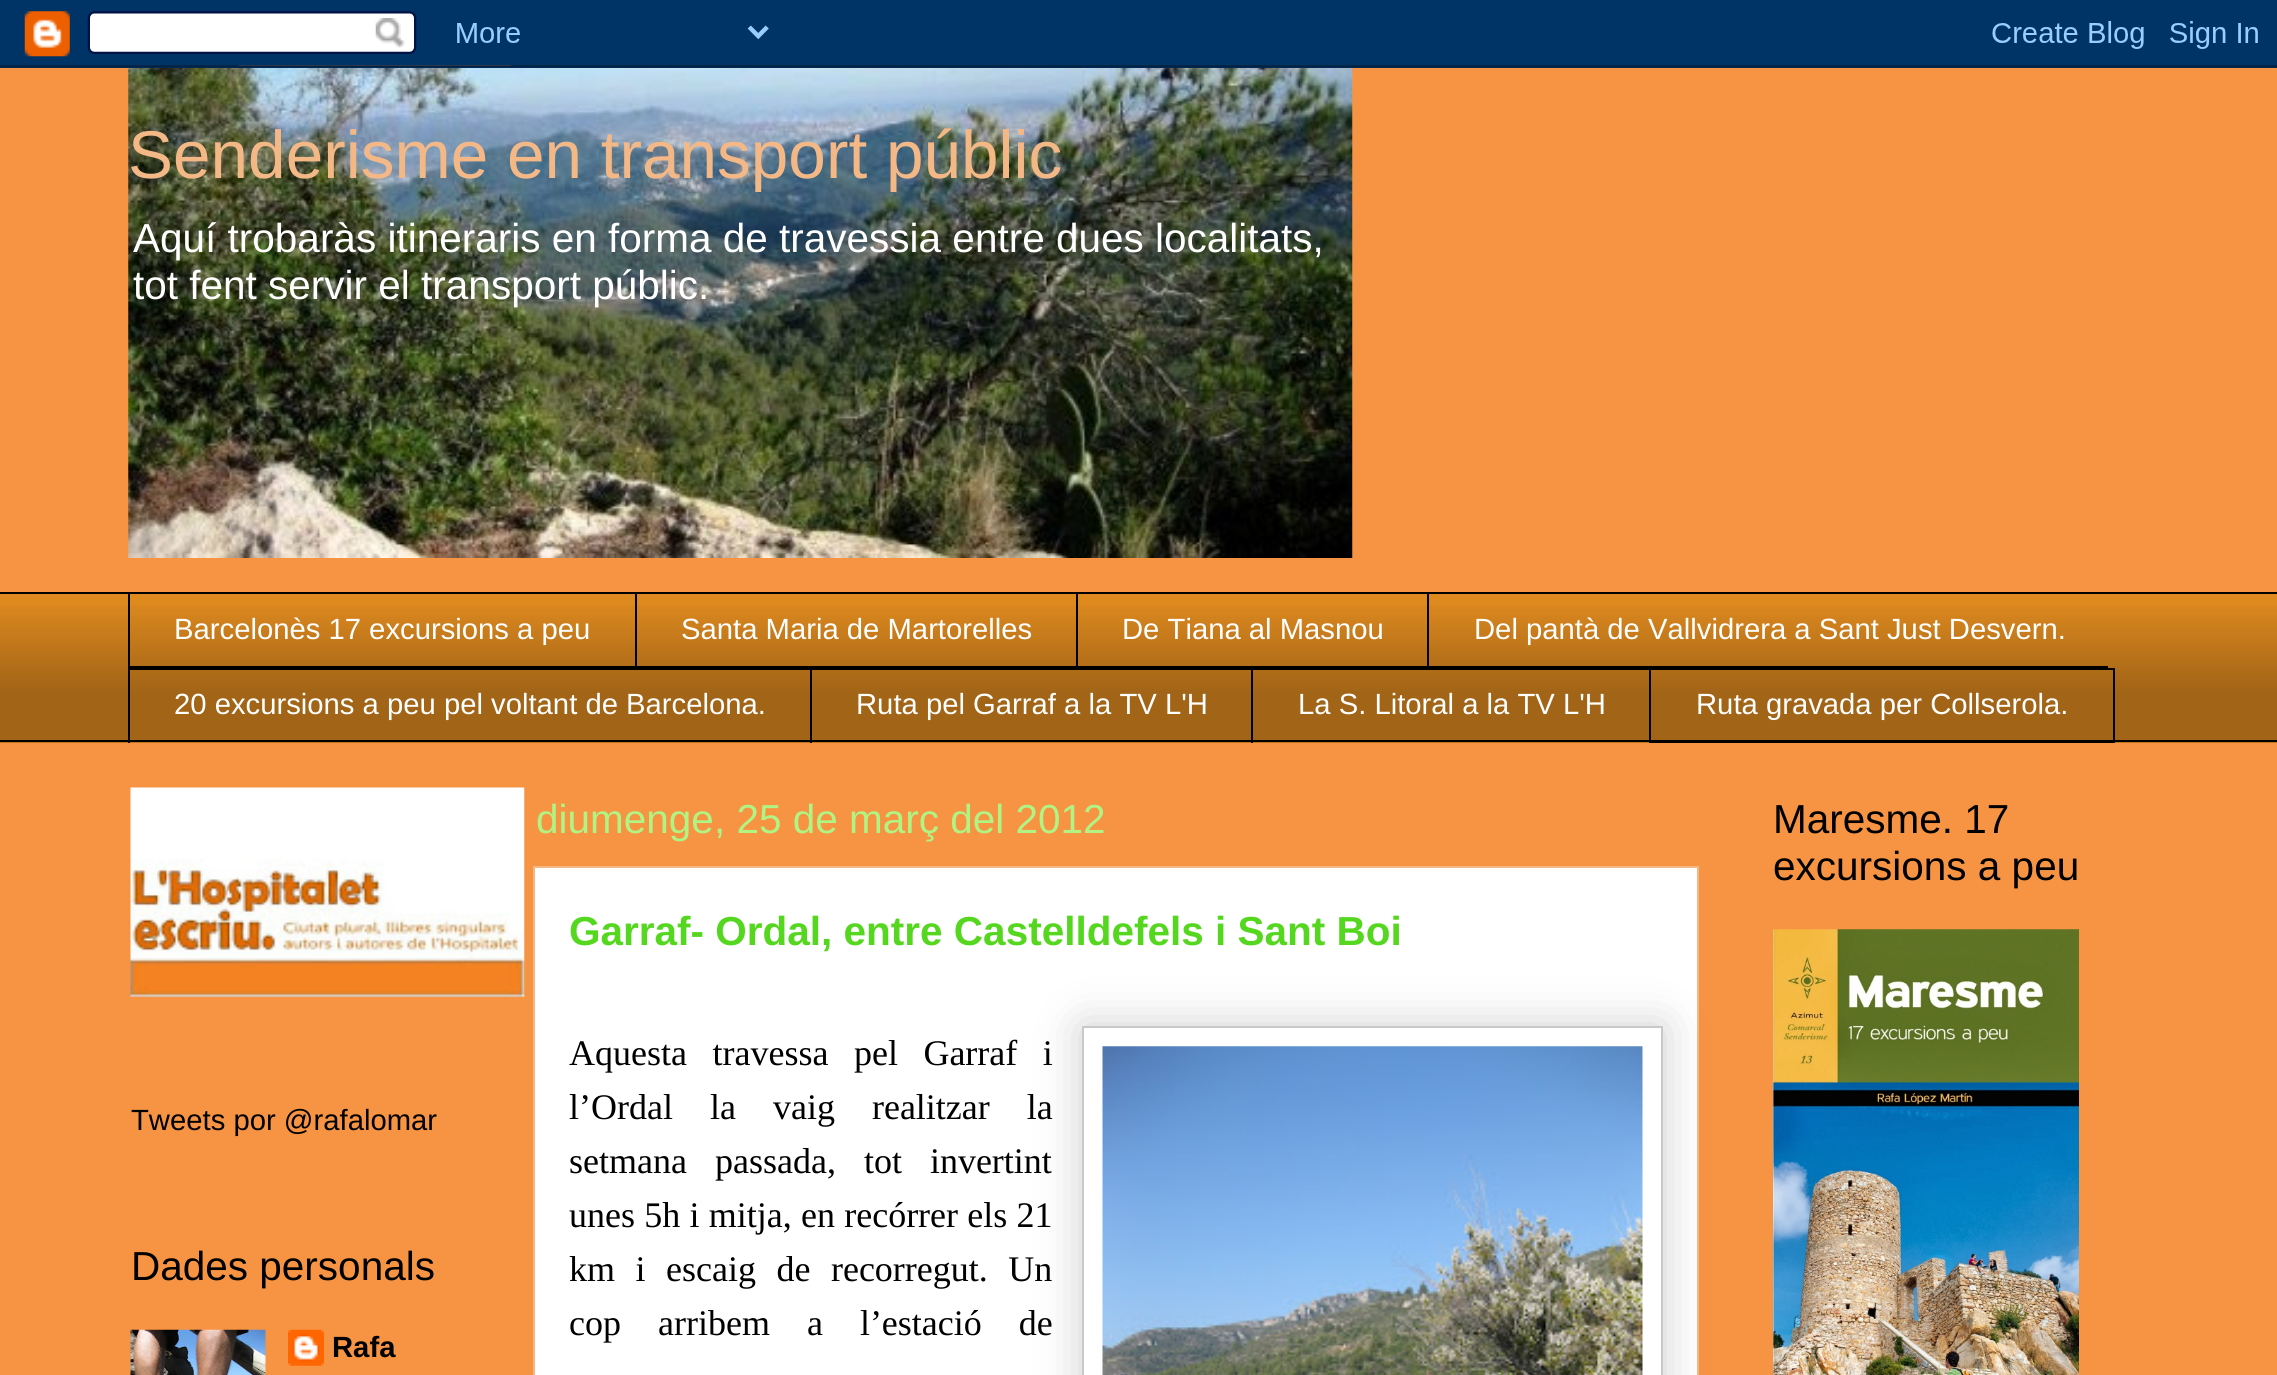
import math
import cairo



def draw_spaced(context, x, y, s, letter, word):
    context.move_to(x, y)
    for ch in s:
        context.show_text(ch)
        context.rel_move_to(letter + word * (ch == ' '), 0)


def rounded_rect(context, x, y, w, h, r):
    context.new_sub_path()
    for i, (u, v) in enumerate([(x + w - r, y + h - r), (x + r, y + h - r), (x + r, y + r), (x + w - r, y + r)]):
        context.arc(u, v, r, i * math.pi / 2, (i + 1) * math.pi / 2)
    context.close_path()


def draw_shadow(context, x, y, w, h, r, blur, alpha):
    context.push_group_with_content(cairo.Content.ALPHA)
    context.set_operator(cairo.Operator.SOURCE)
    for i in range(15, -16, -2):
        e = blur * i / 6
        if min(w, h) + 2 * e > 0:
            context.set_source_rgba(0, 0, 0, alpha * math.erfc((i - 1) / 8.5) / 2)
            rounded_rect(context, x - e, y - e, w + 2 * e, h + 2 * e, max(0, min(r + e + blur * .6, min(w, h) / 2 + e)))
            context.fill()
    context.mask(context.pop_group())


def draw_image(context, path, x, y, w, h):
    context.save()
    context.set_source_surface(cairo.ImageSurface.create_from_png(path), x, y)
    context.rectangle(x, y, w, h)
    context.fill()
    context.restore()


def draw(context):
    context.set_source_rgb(247 / 255, 148 / 255, 67 / 255)
    context.paint()
    draw_image(context, "images/1.png", 0, 0, 2277, 68)
    draw_image(context, "images/2.png", 128, 68, 1225, 490)
    context.set_source_rgb(223 / 255, 138 / 255, 31 / 255)
    context.rectangle(0, 594, 2277, 149)
    context.fill()
    draw_image(context, "images/3.png", 0, 605, 2277, 138)
    context.set_source_rgb(0, 0, 0)
    context.rectangle(0, 592, 2277, 2)
    context.fill()
    context.rectangle(128, 666, 1980, 2)
    context.fill()
    context.rectangle(128, 592, 2, 76)
    context.fill()
    context.rectangle(635, 592, 2, 76)
    context.fill()
    context.rectangle(1076, 592, 2, 76)
    context.fill()
    context.rectangle(1427, 592, 2, 76)
    context.fill()
    context.rectangle(128, 668, 1521, 2)
    context.fill()
    context.rectangle(128, 668, 2, 75)
    context.fill()
    context.rectangle(810, 668, 2, 75)
    context.fill()
    context.rectangle(1251, 668, 2, 75)
    context.fill()
    context.rectangle(1650, 669, 464, 73)
    context.stroke()
    context.rectangle(0, 740, 2277, 2)
    context.fill()
    context.set_source_rgb(1, 1, 1)
    context.rectangle(534, 867, 1164, 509)
    context.fill_preserve()
    context.set_source_rgb(244 / 255, 184 / 255, 135 / 255)
    context.stroke()
    context.set_source_rgb(0, 0, 0)
    draw_shadow(context, 1082, 1026, 581, 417, 0, 22.5, 0.2)
    context.set_source_rgb(1, 1, 1)
    context.rectangle(1083, 1027, 579, 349)
    context.fill_preserve()
    context.set_source_rgb(201 / 255, 201 / 255, 201 / 255)
    context.stroke()
    draw_image(context, "images/4.png", 1102, 1046, 541, 329)
    draw_image(context, "images/5.png", 1773, 929, 306, 446)
    draw_image(context, "images/6.png", 130, 787, 395, 210)
    draw_image(context, "images/7.png", 130, 1329, 136, 46)
    draw_image(context, "images/8.png", 288, 1329, 36, 37)
    context.select_font_face("Liberation Sans")
    context.set_font_size(67.5)
    context.set_source_rgb(244 / 255, 184 / 255, 135 / 255)
    context.move_to(128, 178)
    context.show_text("Senderisme en transport públic")
    context.set_font_size(40.5)
    context.set_source_rgb(1, 1, 1)
    context.move_to(133, 252)
    context.show_text("Aquí trobaràs itineraris en forma de travessia entre dues localitats,")
    context.move_to(133, 299)
    context.show_text("tot fent servir el transport públic.")
    context.set_font_size(29.25)
    context.move_to(174, 639)
    context.show_text("Barcelonès 17 excursions a peu")
    context.move_to(681, 639)
    context.show_text("Santa Maria de Martorelles")
    context.move_to(1122, 639)
    context.show_text("De Tiana al Masnou")
    context.move_to(1474, 639)
    context.show_text("Del pantà de Vallvidrera a Sant Just Desvern.")
    context.move_to(174, 714)
    context.show_text("20 excursions a peu pel voltant de Barcelona.")
    context.move_to(856, 714)
    context.show_text("Ruta pel Garraf a la TV L'H")
    context.move_to(1298, 714)
    context.show_text("La S. Litoral a la TV L'H")
    context.move_to(1696, 714)
    context.show_text("Ruta gravada per Collserola.")
    context.set_font_size(40.5)
    context.set_source_rgb(176 / 255, 244 / 255, 131 / 255)
    context.move_to(536, 833)
    context.show_text("diumenge, 25 de març del 2012")
    context.select_font_face("Liberation Sans", cairo.FontSlant.NORMAL, cairo.FontWeight.BOLD)
    context.set_source_rgb(84 / 255, 215 / 255, 30 / 255)
    context.move_to(569, 945)
    context.show_text("Garraf- Ordal, entre Castelldefels i Sant Boi")
    context.select_font_face("Liberation Serif")
    context.set_font_size(36)
    context.set_source_rgb(0, 0, 0)
    draw_spaced(context, 569, 1065, "Aquesta travessa pel Garraf i", 0, 16.5)
    draw_spaced(context, 569, 1119, "l’Ordal la vaig realitzar la", 0, 28)
    draw_spaced(context, 569, 1173, "setmana passada, tot invertint", 0, 19)
    draw_spaced(context, 569, 1227, "unes 5h i mitja, en recórrer els 21", 0, 0.25)
    draw_spaced(context, 569, 1281, "km i escaig de recorregut. Un", 0, 11.5)
    draw_spaced(context, 569, 1335, "cop arribem a l’estació de", 0, 28)
    context.select_font_face("Liberation Sans")
    context.set_font_size(40.5)
    context.move_to(1773, 833)
    context.show_text("Maresme. 17")
    context.move_to(1773, 880)
    context.show_text("excursions a peu")
    context.set_font_size(29.25)
    context.move_to(131, 1130)
    context.show_text("Tweets por @rafalomar")
    context.set_font_size(40.5)
    context.move_to(131, 1280)
    context.show_text("Dades personals")
    context.select_font_face("Liberation Sans", cairo.FontSlant.NORMAL, cairo.FontWeight.BOLD)
    context.set_font_size(29.25)
    context.move_to(332, 1357)
    context.show_text("Rafa")


surface = cairo.ImageSurface(cairo.Format.RGB24, 2277, 1375)
context = cairo.Context(surface)
options = cairo.FontOptions()
options.set_hint_metrics(cairo.HintMetrics.OFF)
options.set_hint_style(cairo.HintStyle.NONE)
context.set_font_options(options)
context.set_miter_limit(4)
draw(context)
surface.write_to_png("out.png")
